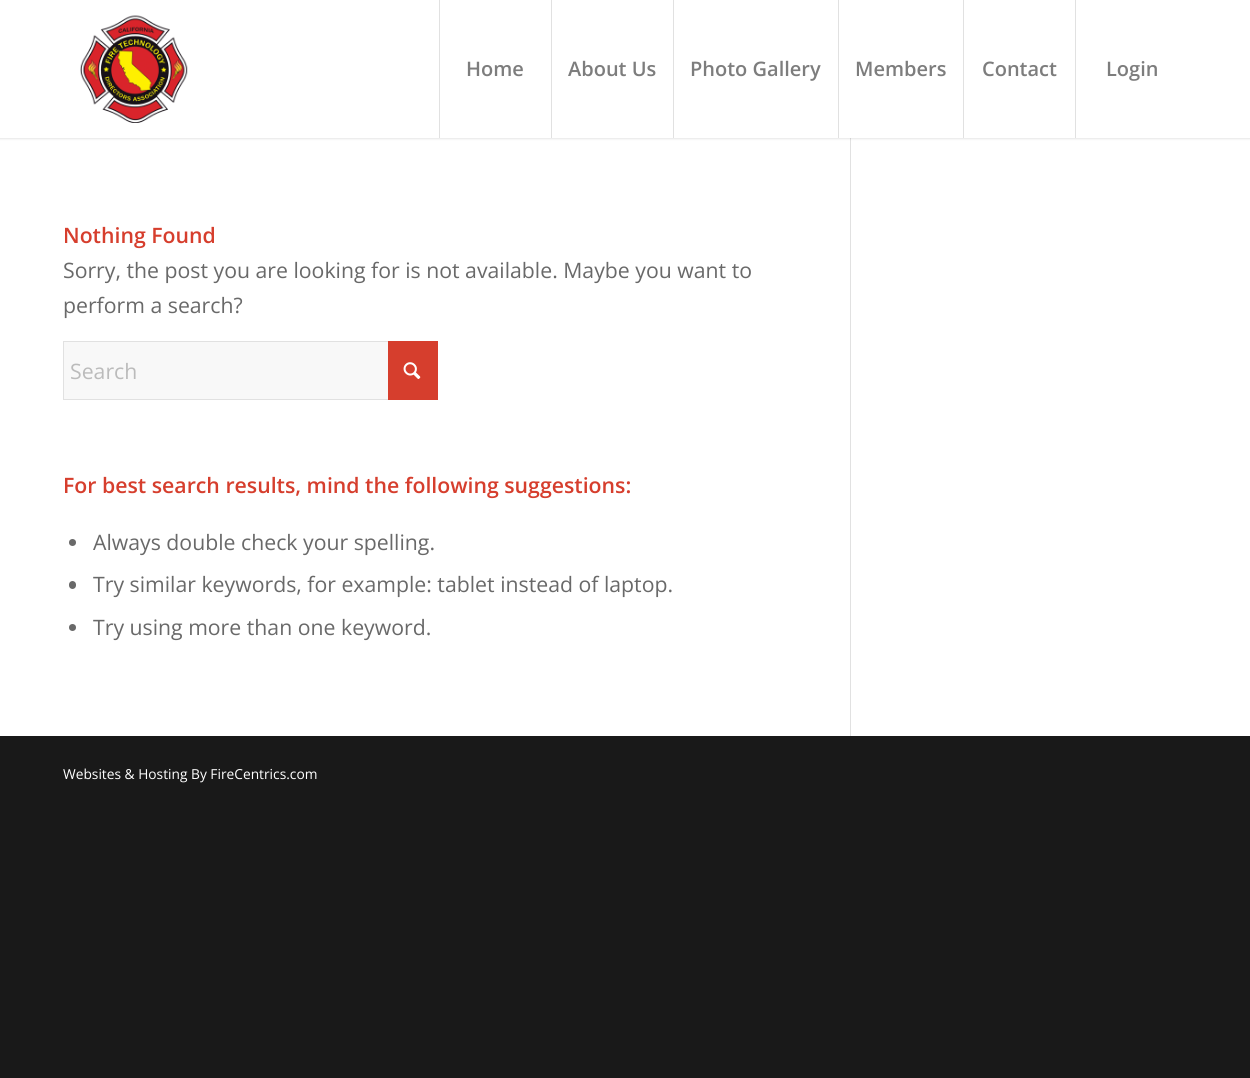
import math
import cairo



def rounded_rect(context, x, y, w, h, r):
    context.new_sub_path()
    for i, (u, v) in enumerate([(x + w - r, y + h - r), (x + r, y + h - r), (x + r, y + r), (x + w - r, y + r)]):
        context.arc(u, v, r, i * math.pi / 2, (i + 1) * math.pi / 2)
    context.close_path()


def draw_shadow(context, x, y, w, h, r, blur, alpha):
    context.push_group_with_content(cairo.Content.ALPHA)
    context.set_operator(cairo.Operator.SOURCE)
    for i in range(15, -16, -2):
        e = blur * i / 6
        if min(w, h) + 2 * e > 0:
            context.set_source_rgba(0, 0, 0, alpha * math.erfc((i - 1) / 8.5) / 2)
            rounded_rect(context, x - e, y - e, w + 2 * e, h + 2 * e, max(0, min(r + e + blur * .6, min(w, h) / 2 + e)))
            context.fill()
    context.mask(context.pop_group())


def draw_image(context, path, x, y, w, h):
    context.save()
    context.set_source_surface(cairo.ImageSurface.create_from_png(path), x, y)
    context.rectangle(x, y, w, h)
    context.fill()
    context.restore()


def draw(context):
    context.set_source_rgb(25 / 255, 25 / 255, 25 / 255)
    context.paint()
    context.set_source_rgb(1, 1, 1)
    context.rectangle(0, 138, 1250, 598)
    context.fill()
    context.set_source_rgb(225 / 255, 225 / 255, 225 / 255)
    context.rectangle(850, 138, 1, 598)
    context.fill()
    context.set_source_rgb(0, 0, 0)
    draw_shadow(context, -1, -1, 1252, 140, 0, 1, 0.1)
    context.set_source_rgb(1, 1, 1)
    context.rectangle(0, 0, 1250, 138)
    context.fill()
    draw_image(context, "images/1.png", 80, 15, 108, 108)
    context.set_source_rgb(225 / 255, 225 / 255, 225 / 255)
    context.rectangle(439, 0, 1, 138)
    context.fill()
    context.rectangle(551, 0, 1, 138)
    context.fill()
    context.rectangle(673, 0, 1, 138)
    context.fill()
    context.rectangle(838, 0, 1, 138)
    context.fill()
    context.rectangle(963, 0, 1, 138)
    context.fill()
    context.rectangle(1075, 0, 1, 138)
    context.fill()
    context.set_source_rgb(248 / 255, 248 / 255, 248 / 255)
    context.rectangle(64, 342, 324, 57)
    context.fill()
    context.rectangle(63.5, 341.5, 374, 58)
    context.set_source_rgb(225 / 255, 225 / 255, 225 / 255)
    context.set_line_width(1)
    context.stroke()
    context.set_source_rgb(214 / 255, 62 / 255, 45 / 255)
    context.rectangle(388, 341, 50, 59)
    context.fill()
    draw_image(context, "images/2.png", 403, 362, 18, 17)
    context.set_source_rgb(105 / 255, 105 / 255, 105 / 255)
    context.arc(72.5, 542.5, 3.5, 0, 2 * math.pi)
    context.fill()
    rounded_rect(context, 69, 581, 7, 8, 3.5)
    context.fill()
    context.arc(72.5, 627.5, 3.5, 0, 2 * math.pi)
    context.fill()
    context.select_font_face("Open Sans SemiBold")
    context.set_font_size(20)
    context.set_source_rgb(125 / 255, 125 / 255, 125 / 255)
    context.move_to(466, 76)
    context.show_text("Home")
    context.move_to(568, 76)
    context.show_text("About Us")
    context.move_to(690, 76)
    context.show_text("Photo Gallery")
    context.move_to(855, 76)
    context.show_text("Members")
    context.move_to(982, 76)
    context.show_text("Contact")
    context.move_to(1106, 76)
    context.show_text("Login")
    context.set_font_size(21.25)
    context.set_source_rgb(214 / 255, 62 / 255, 45 / 255)
    context.move_to(63, 243)
    context.show_text("Nothing Found")
    context.select_font_face("Open Sans")
    context.set_source_rgb(105 / 255, 105 / 255, 105 / 255)
    context.move_to(63, 278)
    context.show_text("Sorry, the post you are looking for is not available. Maybe you want to")
    context.move_to(63, 313)
    context.show_text("perform a search?")
    context.set_source_rgb(187 / 255, 187 / 255, 187 / 255)
    context.move_to(70, 379)
    context.show_text("Search")
    context.select_font_face("Open Sans SemiBold")
    context.set_source_rgb(214 / 255, 62 / 255, 45 / 255)
    context.move_to(63, 493)
    context.show_text("For best search results, mind the following suggestions:")
    context.select_font_face("Open Sans")
    context.set_source_rgb(105 / 255, 105 / 255, 105 / 255)
    context.move_to(93, 550)
    context.show_text("Always double check your spelling.")
    context.move_to(93, 592)
    context.show_text("Try similar keywords, for example: tablet instead of laptop.")
    context.move_to(93, 635)
    context.show_text("Try using more than one keyword.")
    context.set_font_size(13.75)
    context.set_source_rgb(1, 1, 1)
    context.move_to(63, 779)
    context.show_text("Websites & Hosting By FireCentrics.com")


surface = cairo.ImageSurface(cairo.Format.RGB24, 1250, 1078)
context = cairo.Context(surface)
options = cairo.FontOptions()
options.set_hint_metrics(cairo.HintMetrics.OFF)
options.set_hint_style(cairo.HintStyle.NONE)
context.set_font_options(options)
context.set_miter_limit(4)
draw(context)
surface.write_to_png("out.png")
